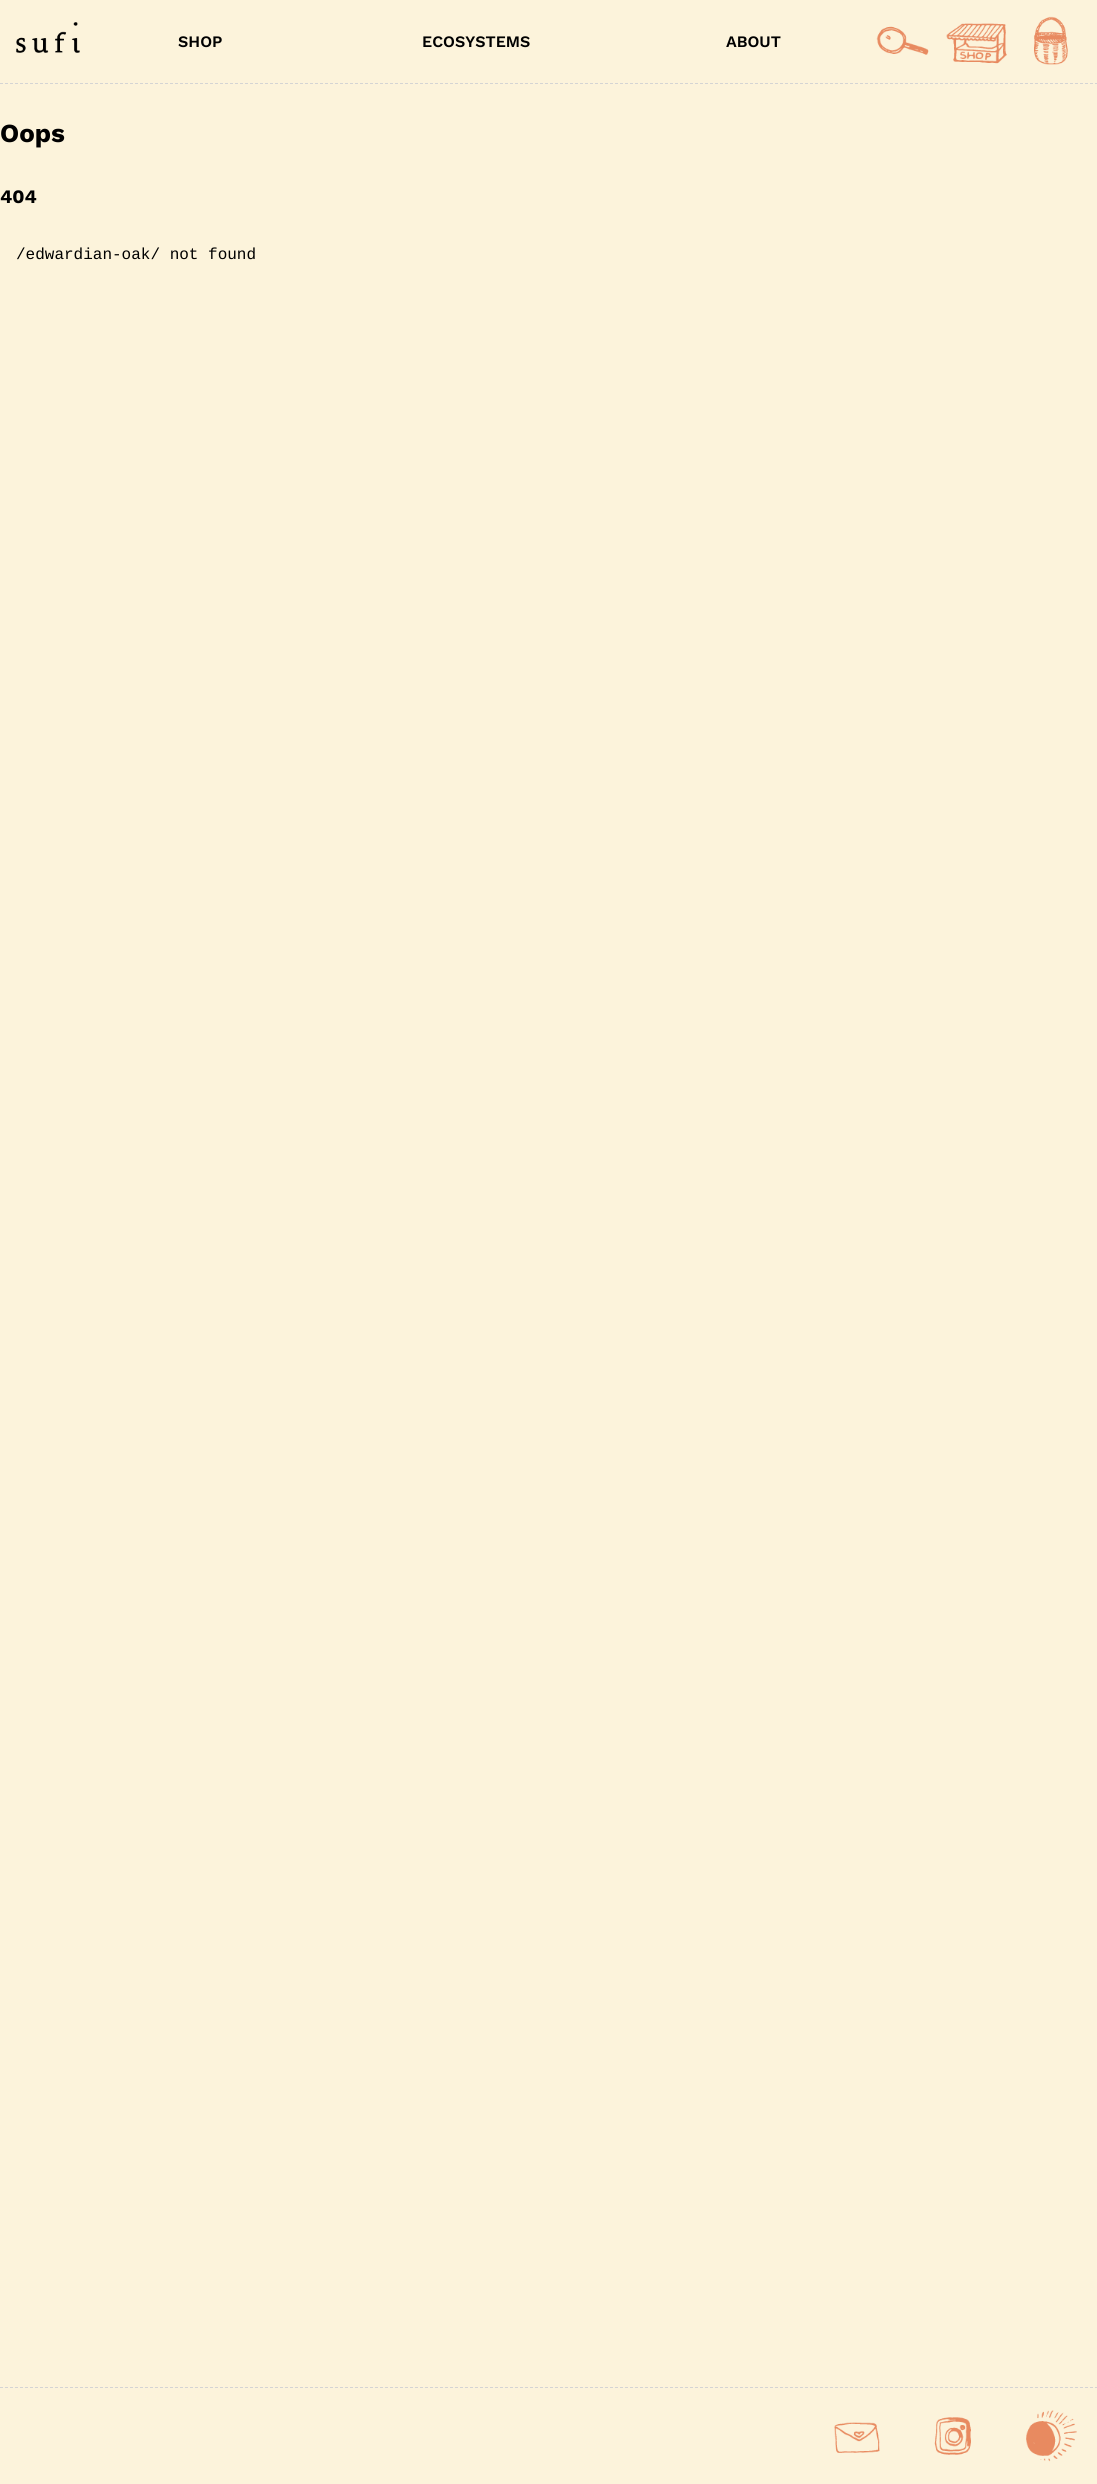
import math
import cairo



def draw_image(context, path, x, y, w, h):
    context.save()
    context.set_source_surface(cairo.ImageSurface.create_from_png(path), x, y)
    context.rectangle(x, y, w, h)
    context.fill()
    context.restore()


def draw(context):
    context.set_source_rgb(252 / 255, 243 / 255, 219 / 255)
    context.paint()
    context.new_path()
    context.move_to(0, 83.5)
    context.line_to(1097, 83.5)
    context.set_source_rgb(212 / 255, 212 / 255, 212 / 255)
    context.set_line_width(1)
    context.set_dash([3, 2])
    context.stroke()
    draw_image(context, "images/1.png", 16, 22, 64, 31)
    draw_image(context, "images/2.png", 876, 26, 53, 29)
    draw_image(context, "images/3.png", 946, 23, 61, 41)
    draw_image(context, "images/4.png", 1034, 16, 34, 49)
    context.new_path()
    context.move_to(0, 2387.5)
    context.line_to(1097, 2387.5)
    context.stroke()
    draw_image(context, "images/5.png", 834, 2422, 46, 31)
    draw_image(context, "images/6.png", 934, 2417, 37, 38)
    draw_image(context, "images/7.png", 1026, 2410, 51, 52)
    context.select_font_face("Work Sans SemiBold")
    context.set_font_size(16)
    context.set_source_rgb(0, 0, 0)
    context.move_to(178, 47)
    context.show_text("SHOP")
    context.move_to(422, 47)
    context.show_text("ECOSYSTEMS")
    context.move_to(726, 47)
    context.show_text("ABOUT")
    context.select_font_face("Work Sans", cairo.FontSlant.NORMAL, cairo.FontWeight.BOLD)
    context.set_font_size(26)
    context.move_to(0, 142)
    context.show_text("Oops")
    context.set_font_size(19)
    context.move_to(0, 203)
    context.show_text("404")
    context.select_font_face("Liberation Mono")
    context.set_font_size(16)
    context.move_to(16, 259)
    context.show_text("/edwardian-oak/ not found")


surface = cairo.ImageSurface(cairo.Format.RGB24, 1097, 2484)
context = cairo.Context(surface)
options = cairo.FontOptions()
options.set_hint_metrics(cairo.HintMetrics.OFF)
options.set_hint_style(cairo.HintStyle.NONE)
context.set_font_options(options)
context.set_miter_limit(4)
draw(context)
surface.write_to_png("out.png")
